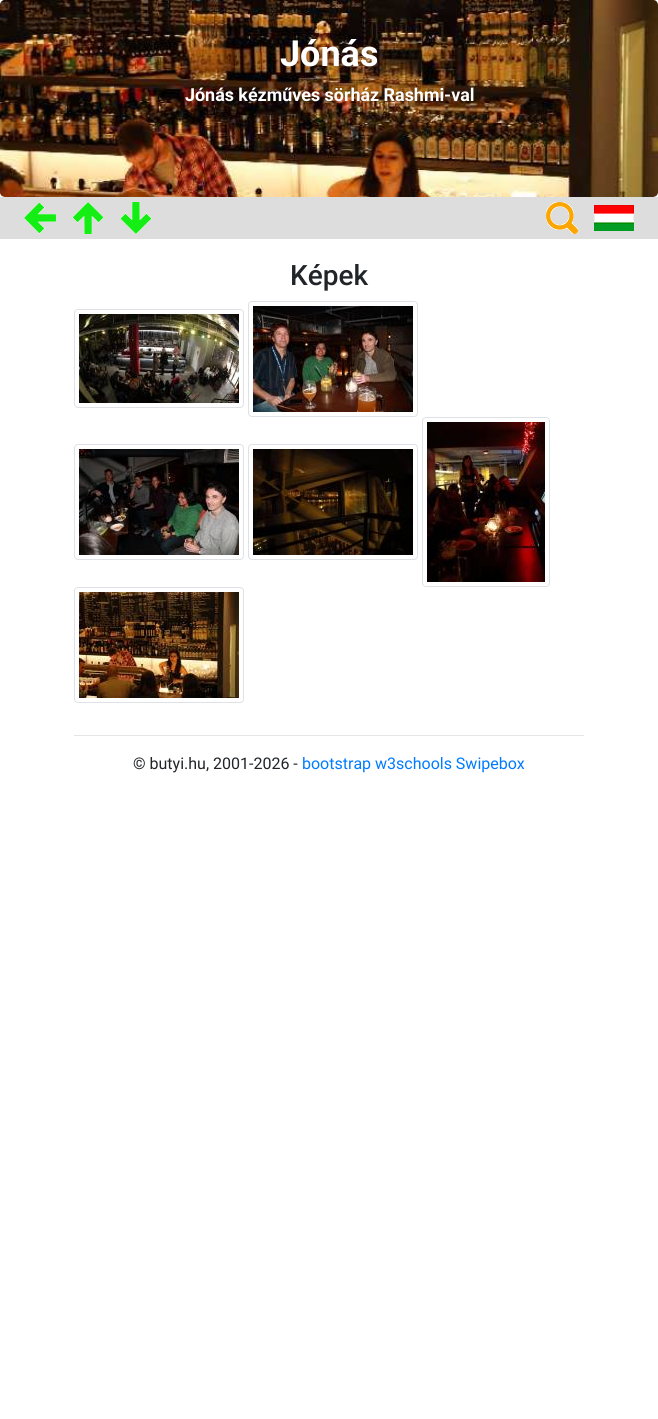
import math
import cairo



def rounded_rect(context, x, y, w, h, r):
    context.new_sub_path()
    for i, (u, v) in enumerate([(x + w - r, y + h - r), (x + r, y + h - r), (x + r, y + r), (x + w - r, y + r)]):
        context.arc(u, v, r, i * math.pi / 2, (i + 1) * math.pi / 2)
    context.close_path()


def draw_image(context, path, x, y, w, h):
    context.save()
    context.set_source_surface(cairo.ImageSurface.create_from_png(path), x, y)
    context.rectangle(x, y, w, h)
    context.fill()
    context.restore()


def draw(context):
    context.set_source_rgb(1, 1, 1)
    context.paint()
    draw_image(context, "images/1.png", 0, 0, 658, 197)
    context.set_source_rgb(221 / 255, 221 / 255, 221 / 255)
    context.rectangle(0, 197, 658, 42)
    context.fill()
    draw_image(context, "images/2.png", 24, 202, 32, 32)
    draw_image(context, "images/3.png", 72, 202, 32, 32)
    draw_image(context, "images/4.png", 120, 202, 32, 32)
    draw_image(context, "images/5.png", 546, 202, 32, 32)
    draw_image(context, "images/6.png", 594, 205, 40, 26)
    rounded_rect(context, 248.5, 301.5, 169, 115, 3.5)
    context.set_source_rgb(222 / 255, 226 / 255, 230 / 255)
    context.set_line_width(1)
    context.stroke()
    rounded_rect(context, 74.5, 309.5, 169, 98, 3.5)
    context.stroke()
    draw_image(context, "images/7.png", 253, 306, 160, 106)
    draw_image(context, "images/8.png", 79, 314, 160, 89)
    rounded_rect(context, 422.5, 417.5, 127, 169, 3.5)
    context.stroke()
    rounded_rect(context, 74.5, 444.5, 169, 115, 3.5)
    context.stroke()
    rounded_rect(context, 248.5, 444.5, 169, 115, 3.5)
    context.stroke()
    draw_image(context, "images/9.png", 427, 422, 118, 160)
    draw_image(context, "images/10.png", 79, 449, 160, 106)
    draw_image(context, "images/11.png", 253, 449, 160, 106)
    rounded_rect(context, 74.5, 587.5, 169, 115, 3.5)
    context.stroke()
    draw_image(context, "images/12.png", 79, 592, 160, 106)
    context.set_source_rgb(230 / 255, 230 / 255, 230 / 255)
    context.rectangle(74, 735, 510, 1)
    context.fill()
    context.select_font_face("Roboto", cairo.FontSlant.NORMAL, cairo.FontWeight.BOLD)
    context.set_font_size(36)
    context.set_source_rgb(1, 1, 1)
    context.move_to(280, 66)
    context.show_text("Jónás")
    context.set_font_size(17.9)
    context.move_to(185, 101)
    context.show_text("Jónás kézműves sörház Rashmi-val")
    context.select_font_face("Roboto Medium")
    context.set_font_size(28)
    context.set_source_rgb(33 / 255, 37 / 255, 41 / 255)
    context.move_to(290, 285)
    context.show_text("Képek")
    context.select_font_face("Roboto")
    context.set_font_size(16)
    context.move_to(133, 769)
    context.show_text("© butyi.hu, 2001-2026 -")
    context.set_source_rgb(0, 123 / 255, 1)
    context.move_to(302, 769)
    context.show_text("bootstrap w3schools Swipebox")


surface = cairo.ImageSurface(cairo.Format.RGB24, 658, 1419)
context = cairo.Context(surface)
options = cairo.FontOptions()
options.set_hint_metrics(cairo.HintMetrics.OFF)
options.set_hint_style(cairo.HintStyle.NONE)
context.set_font_options(options)
context.set_miter_limit(4)
draw(context)
surface.write_to_png("out.png")
